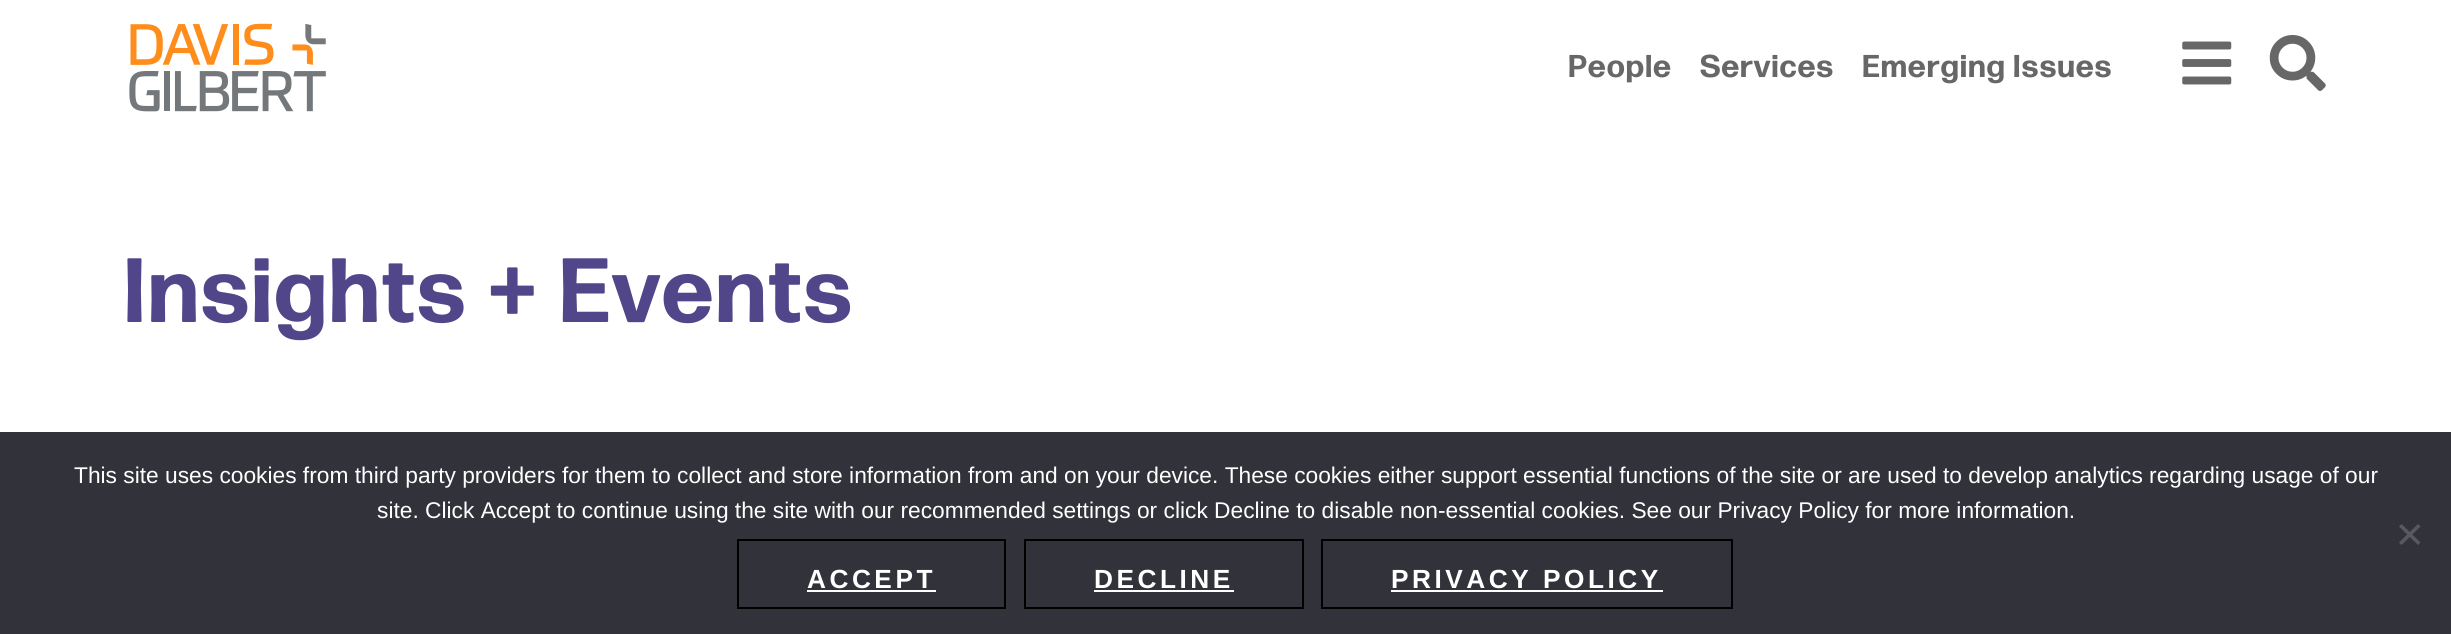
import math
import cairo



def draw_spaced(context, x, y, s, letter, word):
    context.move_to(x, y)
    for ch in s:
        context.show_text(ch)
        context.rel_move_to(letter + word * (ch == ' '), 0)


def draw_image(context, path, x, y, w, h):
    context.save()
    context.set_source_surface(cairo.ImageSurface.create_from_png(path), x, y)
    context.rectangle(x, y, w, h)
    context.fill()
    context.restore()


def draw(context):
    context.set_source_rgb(1, 1, 1)
    context.paint()
    draw_image(context, "images/1.png", 129, 23, 197, 89)
    draw_image(context, "images/2.png", 2182, 41, 50, 44)
    draw_image(context, "images/3.png", 2269, 35, 57, 56)
    context.set_source_rgb(50 / 255, 50 / 255, 58 / 255)
    context.rectangle(0, 432, 2451, 202)
    context.fill()
    context.set_source_rgb(89 / 255, 89 / 255, 93 / 255)
    context.new_path()
    context.move_to(2418, 524)
    context.line_to(2420.5, 526.5)
    context.line_to(2401.5, 545)
    context.line_to(2399, 542.5)
    context.close_path()
    context.fill()
    context.new_path()
    context.move_to(2399, 526.5)
    context.line_to(2401.5, 524)
    context.line_to(2420.5, 542.5)
    context.line_to(2418, 545)
    context.close_path()
    context.fill()
    context.rectangle(738, 540, 267, 68)
    context.set_source_rgb(0, 0, 0)
    context.stroke()
    context.set_source_rgb(1, 1, 1)
    context.rectangle(807, 590, 129, 2)
    context.fill()
    context.rectangle(1025, 540, 278, 68)
    context.set_source_rgb(0, 0, 0)
    context.stroke()
    context.set_source_rgb(1, 1, 1)
    context.rectangle(1094, 590, 140, 2)
    context.fill()
    context.rectangle(1322, 540, 410, 68)
    context.set_source_rgb(0, 0, 0)
    context.stroke()
    context.set_source_rgb(1, 1, 1)
    context.rectangle(1391, 590, 272, 2)
    context.fill()
    context.select_font_face("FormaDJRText", cairo.FontSlant.NORMAL, cairo.FontWeight.BOLD)
    context.set_font_size(31.5)
    context.set_source_rgb(103 / 255, 103 / 255, 103 / 255)
    draw_spaced(context, 1568, 77, "People", 0.9, 0)
    draw_spaced(context, 1700, 77, "Services", 0.9, 0)
    draw_spaced(context, 1862, 77, "Emerging Issues", 0.9, 0)
    context.set_font_size(91)
    context.set_source_rgb(81 / 255, 70 / 255, 137 / 255)
    draw_spaced(context, 123, 322, "Insights + Events", 1.75, 0)
    context.select_font_face("Liberation Sans")
    context.set_font_size(22.75)
    context.set_source_rgb(1, 1, 1)
    context.move_to(74, 483)
    context.show_text("This site uses cookies from third party providers for them to collect and store information from and on your device. These cookies either support essential functions of the site or are used to develop analytics regarding usage of our")
    context.move_to(377, 518)
    context.show_text("site. Click Accept to continue using the site with our recommended settings or click Decline to disable non-essential cookies. See our Privacy Policy for more information.")
    context.select_font_face("Liberation Sans", cairo.FontSlant.NORMAL, cairo.FontWeight.BOLD)
    context.set_font_size(26.25)
    draw_spaced(context, 807, 588, "ACCEPT", 3.5, 0)
    draw_spaced(context, 1094, 588, "DECLINE", 3.5, 0)
    draw_spaced(context, 1391, 588, "PRIVACY POLICY", 3.5, 0)


surface = cairo.ImageSurface(cairo.Format.RGB24, 2451, 634)
context = cairo.Context(surface)
options = cairo.FontOptions()
options.set_hint_metrics(cairo.HintMetrics.OFF)
options.set_hint_style(cairo.HintStyle.NONE)
context.set_font_options(options)
context.set_miter_limit(4)
draw(context)
surface.write_to_png("out.png")
